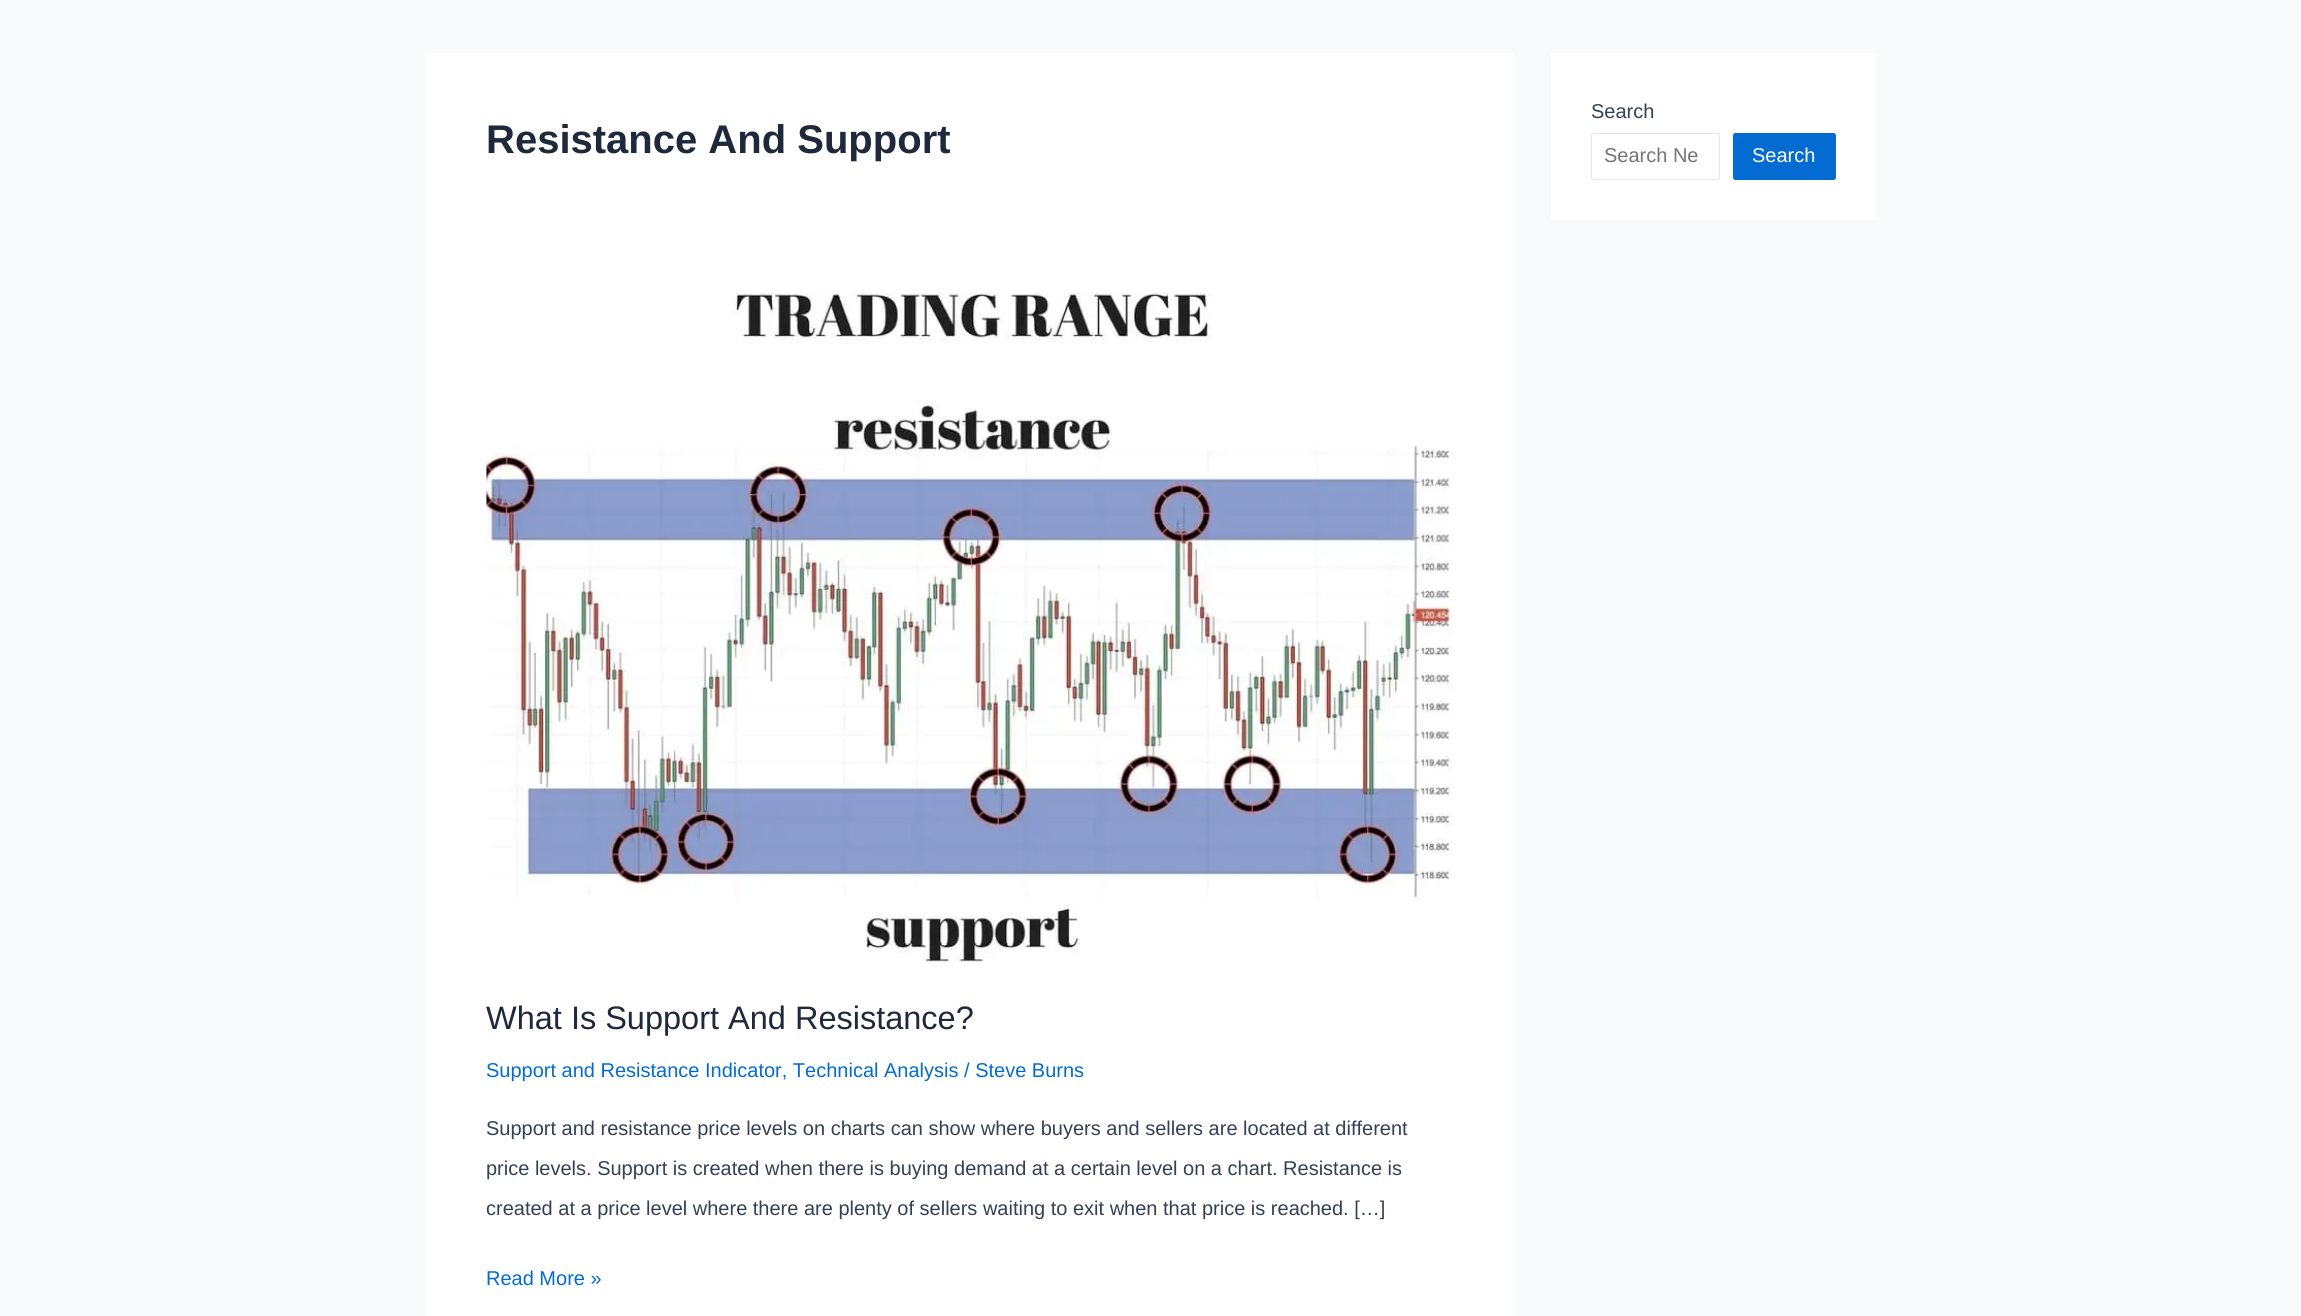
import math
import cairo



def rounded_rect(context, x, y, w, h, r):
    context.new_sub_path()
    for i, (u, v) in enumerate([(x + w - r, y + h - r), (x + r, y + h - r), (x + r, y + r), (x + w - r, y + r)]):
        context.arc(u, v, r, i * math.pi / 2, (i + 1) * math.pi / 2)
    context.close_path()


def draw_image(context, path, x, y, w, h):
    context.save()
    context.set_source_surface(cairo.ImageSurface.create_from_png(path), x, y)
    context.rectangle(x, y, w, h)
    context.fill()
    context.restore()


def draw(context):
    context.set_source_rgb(249 / 255, 250 / 255, 251 / 255)
    context.paint()
    context.set_source_rgb(1, 1, 1)
    context.rectangle(426, 53, 1088, 1263)
    context.fill()
    draw_image(context, "images/1.png", 486, 293, 967, 669)
    context.rectangle(1551, 53, 325, 167)
    context.fill()
    rounded_rect(context, 1591.5, 133.5, 128, 46, 2)
    context.set_source_rgb(226 / 255, 232 / 255, 240 / 255)
    context.set_line_width(1)
    context.stroke()
    context.set_source_rgb(4 / 255, 107 / 255, 210 / 255)
    rounded_rect(context, 1733, 133, 103, 47, 2.5)
    context.fill()
    context.select_font_face("Liberation Sans", cairo.FontSlant.NORMAL, cairo.FontWeight.BOLD)
    context.set_font_size(40)
    context.set_source_rgb(30 / 255, 41 / 255, 59 / 255)
    context.move_to(486, 153)
    context.show_text("Resistance And Support")
    context.select_font_face("Liberation Sans")
    context.set_font_size(32.5)
    context.move_to(486, 1029)
    context.show_text("What Is Support And Resistance?")
    context.set_font_size(20)
    context.set_source_rgb(4 / 255, 107 / 255, 210 / 255)
    context.move_to(486, 1077)
    context.show_text("Support and Resistance Indicator, Technical Analysis / Steve Burns")
    context.set_source_rgb(51 / 255, 65 / 255, 85 / 255)
    context.move_to(486, 1135)
    context.show_text("Support and resistance price levels on charts can show where buyers and sellers are located at different")
    context.move_to(486, 1175)
    context.show_text("price levels. Support is created when there is buying demand at a certain level on a chart. Resistance is")
    context.move_to(486, 1215)
    context.show_text("created at a price level where there are plenty of sellers waiting to exit when that price is reached. […]")
    context.set_source_rgb(4 / 255, 107 / 255, 210 / 255)
    context.move_to(486, 1285)
    context.show_text("Read More »")
    context.set_source_rgb(51 / 255, 65 / 255, 85 / 255)
    context.move_to(1591, 118)
    context.show_text("Search")
    context.set_source_rgb(117 / 255, 117 / 255, 117 / 255)
    context.move_to(1604, 162)
    context.show_text("Search Ne")
    context.set_source_rgb(1, 1, 1)
    context.move_to(1752, 162)
    context.show_text("Search")


surface = cairo.ImageSurface(cairo.Format.RGB24, 2301, 1316)
context = cairo.Context(surface)
options = cairo.FontOptions()
options.set_hint_metrics(cairo.HintMetrics.OFF)
options.set_hint_style(cairo.HintStyle.NONE)
context.set_font_options(options)
context.set_miter_limit(4)
draw(context)
surface.write_to_png("out.png")
